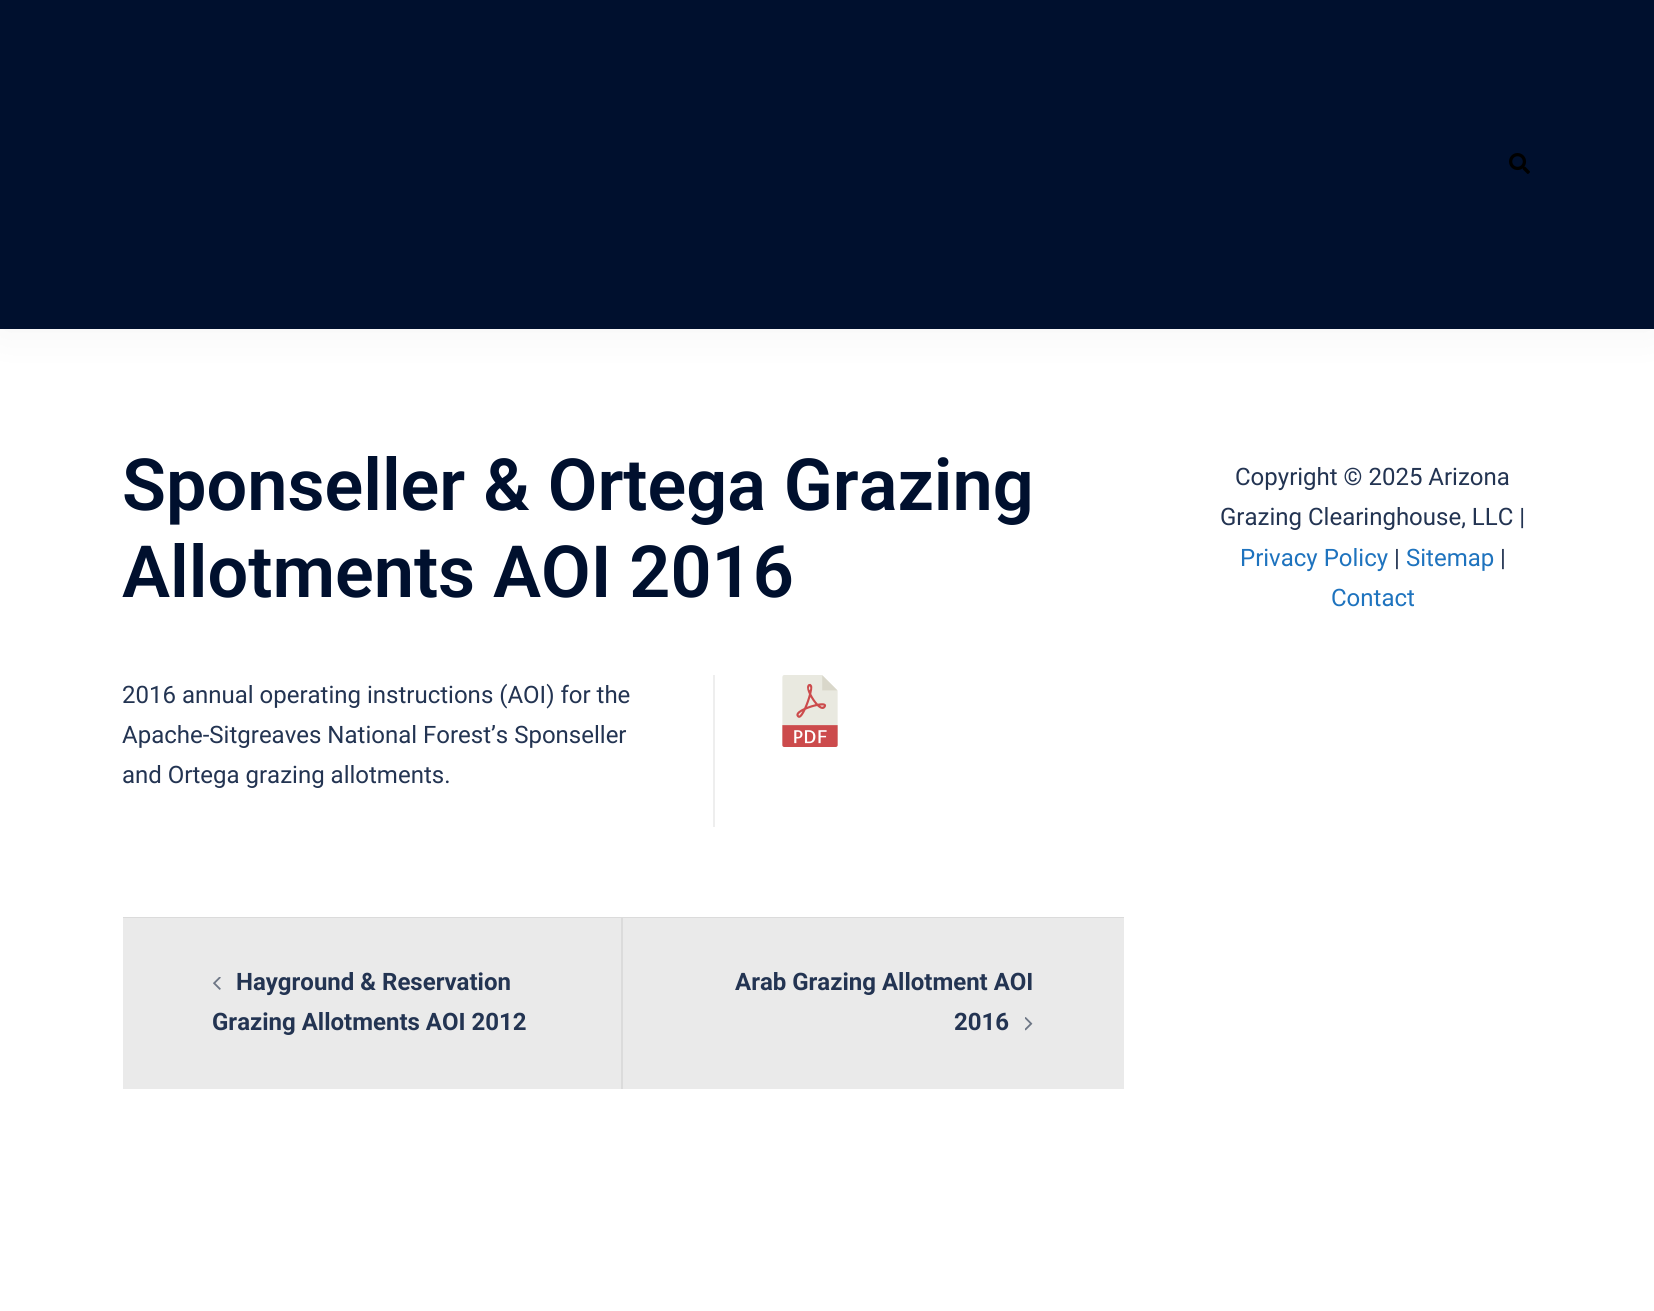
import math
import cairo



def rounded_rect(context, x, y, w, h, r):
    context.new_sub_path()
    for i, (u, v) in enumerate([(x + w - r, y + h - r), (x + r, y + h - r), (x + r, y + r), (x + w - r, y + r)]):
        context.arc(u, v, r, i * math.pi / 2, (i + 1) * math.pi / 2)
    context.close_path()


def draw_shadow(context, x, y, w, h, r, blur, alpha):
    context.push_group_with_content(cairo.Content.ALPHA)
    context.set_operator(cairo.Operator.SOURCE)
    for i in range(15, -16, -2):
        e = blur * i / 6
        if min(w, h) + 2 * e > 0:
            context.set_source_rgba(0, 0, 0, alpha * math.erfc((i - 1) / 8.5) / 2)
            rounded_rect(context, x - e, y - e, w + 2 * e, h + 2 * e, max(0, min(r + e + blur * .6, min(w, h) / 2 + e)))
            context.fill()
    context.mask(context.pop_group())


def draw_image(context, path, x, y, w, h):
    context.save()
    context.set_source_surface(cairo.ImageSurface.create_from_png(path), x, y)
    context.rectangle(x, y, w, h)
    context.fill()
    context.restore()


def draw(context):
    context.set_source_rgb(1, 1, 1)
    context.paint()
    context.set_source_rgb(0, 0, 0)
    draw_shadow(context, 0, 0, 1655, 329, 0, 22.5, 0.05)
    context.set_source_rgb(0, 16 / 255, 46 / 255)
    context.rectangle(0, 0, 1654, 329)
    context.fill()
    draw_image(context, "images/1.png", 1509, 153, 21, 21)
    context.set_source_rgb(238 / 255, 238 / 255, 238 / 255)
    context.rectangle(713, 675, 2, 152)
    context.fill()
    draw_image(context, "images/2.png", 782, 675, 56, 72)
    context.set_source_rgb(219 / 255, 219 / 255, 219 / 255)
    context.rectangle(123, 917, 1001, 1)
    context.fill()
    context.set_source_rgb(234 / 255, 234 / 255, 234 / 255)
    context.rectangle(123, 918, 498, 171)
    context.fill()
    context.set_source_rgb(219 / 255, 219 / 255, 219 / 255)
    context.rectangle(621, 918, 2, 171)
    context.fill()
    draw_image(context, "images/3.png", 213, 977, 8, 13)
    context.set_source_rgb(234 / 255, 234 / 255, 234 / 255)
    context.rectangle(623, 918, 501, 171)
    context.fill()
    draw_image(context, "images/4.png", 1025, 1017, 8, 14)
    context.select_font_face("Roboto SemiBold")
    context.set_font_size(72)
    context.set_source_rgb(0, 16 / 255, 46 / 255)
    context.move_to(122, 510)
    context.show_text("Sponseller & Ortega Grazing")
    context.move_to(122, 597)
    context.show_text("Allotments AOI 2016")
    context.select_font_face("Roboto")
    context.set_font_size(24)
    context.set_source_rgb(35 / 255, 52 / 255, 82 / 255)
    context.move_to(122, 703)
    context.show_text("2016 annual operating instructions (AOI) for the")
    context.move_to(122, 743)
    context.show_text("Apache-Sitgreaves National Forest’s Sponseller")
    context.move_to(122, 783)
    context.show_text("and Ortega grazing allotments.")
    context.select_font_face("Roboto", cairo.FontSlant.NORMAL, cairo.FontWeight.BOLD)
    context.move_to(236, 990)
    context.show_text("Hayground & Reservation")
    context.move_to(212, 1030)
    context.show_text("Grazing Allotments AOI 2012")
    context.move_to(735, 990)
    context.show_text("Arab Grazing Allotment AOI")
    context.move_to(954, 1030)
    context.show_text("2016")
    context.select_font_face("Roboto")
    context.move_to(1235, 485)
    context.show_text("Copyright © 2025 Arizona")
    context.move_to(1220, 525)
    context.show_text("Grazing Clearinghouse, LLC |")
    context.set_source_rgb(30 / 255, 115 / 255, 190 / 255)
    context.move_to(1240, 566)
    context.show_text("Privacy Policy")
    context.set_source_rgb(35 / 255, 52 / 255, 82 / 255)
    context.move_to(1394, 566)
    context.show_text("|")
    context.set_source_rgb(30 / 255, 115 / 255, 190 / 255)
    context.move_to(1406, 566)
    context.show_text("Sitemap")
    context.set_source_rgb(35 / 255, 52 / 255, 82 / 255)
    context.move_to(1500, 566)
    context.show_text("|")
    context.set_source_rgb(30 / 255, 115 / 255, 190 / 255)
    context.move_to(1331, 606)
    context.show_text("Contact")


surface = cairo.ImageSurface(cairo.Format.RGB24, 1654, 1311)
context = cairo.Context(surface)
options = cairo.FontOptions()
options.set_hint_metrics(cairo.HintMetrics.OFF)
options.set_hint_style(cairo.HintStyle.NONE)
context.set_font_options(options)
context.set_miter_limit(4)
draw(context)
surface.write_to_png("out.png")
